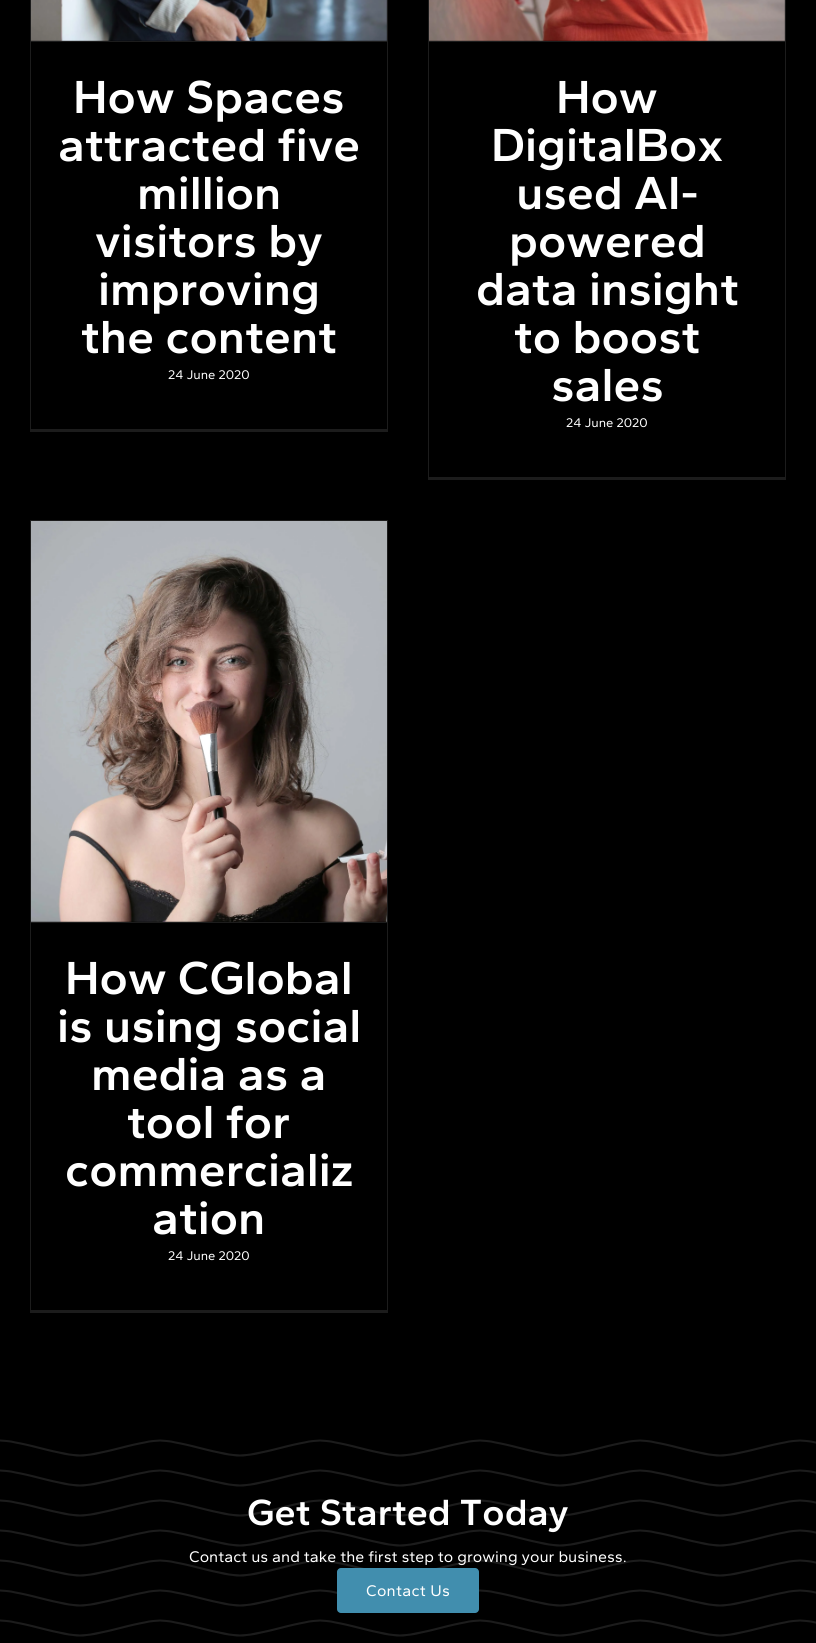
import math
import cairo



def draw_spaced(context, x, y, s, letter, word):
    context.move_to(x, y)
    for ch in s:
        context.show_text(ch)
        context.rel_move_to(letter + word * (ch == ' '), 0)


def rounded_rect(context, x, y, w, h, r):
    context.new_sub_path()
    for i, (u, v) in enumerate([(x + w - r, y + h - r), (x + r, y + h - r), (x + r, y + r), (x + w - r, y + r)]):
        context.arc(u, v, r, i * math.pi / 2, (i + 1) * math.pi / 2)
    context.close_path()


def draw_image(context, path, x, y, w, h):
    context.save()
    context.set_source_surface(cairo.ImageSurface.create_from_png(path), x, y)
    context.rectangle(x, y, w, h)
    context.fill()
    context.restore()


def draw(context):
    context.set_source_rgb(0, 0, 0)
    context.paint()
    context.set_source_rgb(28 / 255, 28 / 255, 28 / 255)
    context.rectangle(387, 0, 1, 432)
    context.fill()
    context.rectangle(30, 429, 358, 3)
    context.fill()
    context.rectangle(30, 0, 1, 432)
    context.fill()
    context.rectangle(31, 41, 356, 1)
    context.fill()
    draw_image(context, "images/1.png", 31, 0, 356, 41)
    context.rectangle(785, 0, 1, 480)
    context.fill()
    context.rectangle(428, 477, 358, 3)
    context.fill()
    context.rectangle(428, 0, 1, 480)
    context.fill()
    context.rectangle(429, 41, 356, 1)
    context.fill()
    draw_image(context, "images/2.png", 429, 0, 356, 41)
    context.rectangle(30, 520, 358, 1)
    context.fill()
    context.rectangle(387, 520, 1, 793)
    context.fill()
    context.rectangle(30, 1310, 358, 3)
    context.fill()
    context.rectangle(30, 520, 1, 793)
    context.fill()
    context.rectangle(31, 922, 356, 1)
    context.fill()
    draw_image(context, "images/3.png", 31, 521, 356, 401)
    draw_image(context, "images/4.png", 0, 1439, 816, 198)
    context.set_source_rgb(65 / 255, 142 / 255, 174 / 255)
    rounded_rect(context, 337, 1568, 142, 45, 4)
    context.fill()
    context.select_font_face("Gantari SemiBold")
    context.set_font_size(48)
    context.set_source_rgb(1, 1, 1)
    context.move_to(73, 113)
    context.show_text("How Spaces")
    context.move_to(58, 161)
    context.show_text("attracted five")
    context.move_to(137, 209)
    context.show_text("million")
    context.move_to(95, 257)
    context.show_text("visitors by")
    context.move_to(98, 305)
    context.show_text("improving")
    context.move_to(81, 353)
    context.show_text("the content")
    context.select_font_face("Gantari")
    context.set_font_size(13)
    context.move_to(168, 379)
    context.show_text("24 June 2020")
    context.select_font_face("Gantari SemiBold")
    context.set_font_size(48)
    context.move_to(556, 113)
    context.show_text("How")
    context.move_to(491, 161)
    context.show_text("DigitalBox")
    context.move_to(516, 209)
    context.show_text("used AI-")
    context.move_to(509, 257)
    context.show_text("powered")
    context.move_to(476, 305)
    context.show_text("data insight")
    context.move_to(514, 353)
    context.show_text("to boost")
    context.move_to(551, 401)
    context.show_text("sales")
    context.select_font_face("Gantari")
    context.set_font_size(13)
    context.move_to(566, 427)
    context.show_text("24 June 2020")
    context.select_font_face("Gantari SemiBold")
    context.set_font_size(48)
    context.move_to(65, 994)
    context.show_text("How CGlobal")
    context.move_to(57, 1042)
    context.show_text("is using social")
    context.move_to(91, 1090)
    context.show_text("media as a")
    context.move_to(127, 1138)
    context.show_text("tool for")
    context.move_to(65, 1186)
    context.show_text("commercializ")
    context.move_to(152, 1234)
    context.show_text("ation")
    context.select_font_face("Gantari")
    context.set_font_size(13)
    context.move_to(168, 1260)
    context.show_text("24 June 2020")
    context.select_font_face("Gantari SemiBold")
    context.set_font_size(37.75)
    context.move_to(247, 1525)
    context.show_text("Get Started Today")
    context.select_font_face("Gantari")
    context.set_font_size(16)
    context.move_to(189, 1562)
    context.show_text("Contact us and take the first step to growing your business.")
    draw_spaced(context, 366, 1596, "Contact Us", 0.25, 0)


surface = cairo.ImageSurface(cairo.Format.RGB24, 816, 1643)
context = cairo.Context(surface)
options = cairo.FontOptions()
options.set_hint_metrics(cairo.HintMetrics.OFF)
options.set_hint_style(cairo.HintStyle.NONE)
context.set_font_options(options)
context.set_miter_limit(4)
draw(context)
surface.write_to_png("out.png")
